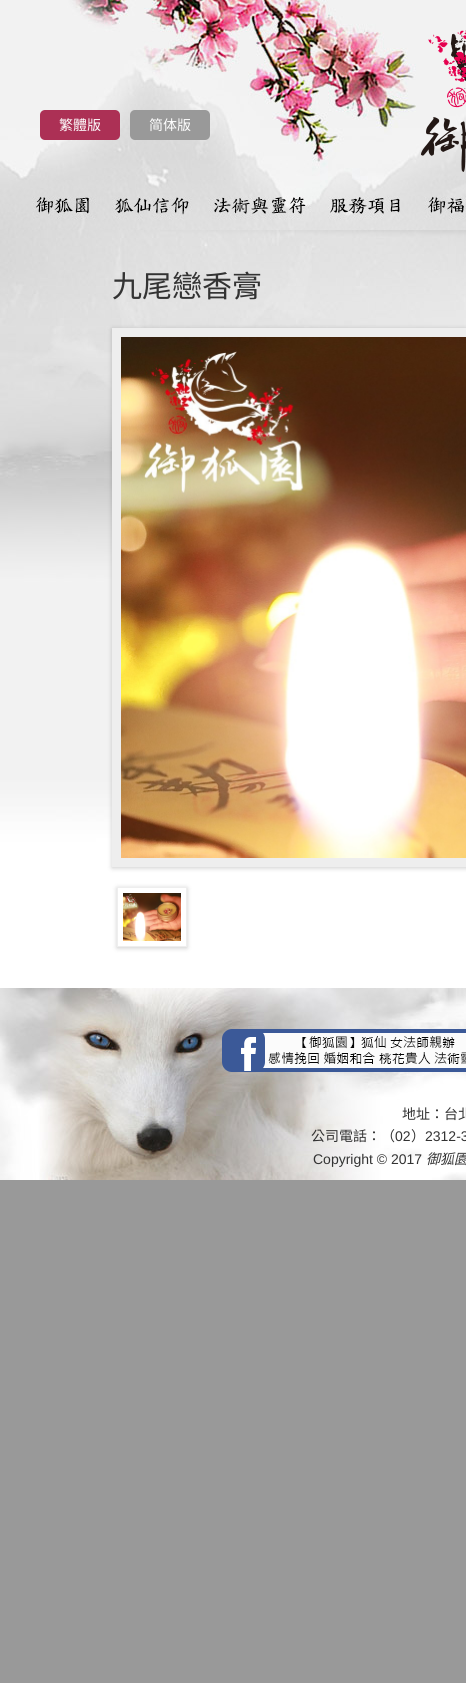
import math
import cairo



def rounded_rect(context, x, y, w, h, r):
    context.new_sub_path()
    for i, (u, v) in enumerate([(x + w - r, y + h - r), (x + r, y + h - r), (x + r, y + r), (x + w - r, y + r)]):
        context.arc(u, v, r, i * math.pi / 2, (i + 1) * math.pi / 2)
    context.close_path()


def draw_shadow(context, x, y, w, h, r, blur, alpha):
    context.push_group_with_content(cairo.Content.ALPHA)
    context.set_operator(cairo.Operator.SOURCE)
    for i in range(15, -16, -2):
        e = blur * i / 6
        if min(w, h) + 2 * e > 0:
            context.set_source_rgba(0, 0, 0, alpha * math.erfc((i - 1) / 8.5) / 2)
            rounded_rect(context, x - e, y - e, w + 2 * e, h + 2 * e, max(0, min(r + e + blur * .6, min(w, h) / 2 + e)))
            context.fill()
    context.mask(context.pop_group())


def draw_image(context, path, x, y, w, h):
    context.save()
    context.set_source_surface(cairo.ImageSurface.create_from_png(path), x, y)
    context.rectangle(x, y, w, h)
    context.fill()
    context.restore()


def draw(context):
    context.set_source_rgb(153 / 255, 153 / 255, 153 / 255)
    context.paint()
    draw_image(context, "images/1.png", 0, 0, 466, 180)
    context.set_source_rgb(172 / 255, 48 / 255, 85 / 255)
    rounded_rect(context, 40, 110, 80, 30, 5)
    context.fill()
    context.set_source_rgb(153 / 255, 153 / 255, 153 / 255)
    rounded_rect(context, 130, 110, 80, 30, 5)
    context.fill()
    draw_image(context, "images/2.png", 421, 30, 45, 142)
    draw_image(context, "images/3.png", 0, 180, 466, 50)
    draw_image(context, "images/4.png", 0, 230, 466, 758)
    context.set_source_rgb(0, 0, 0)
    draw_shadow(context, 112, 329, 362, 539, 0, 2.5, 0.2)
    context.rectangle(116.5, 332.5, 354, 530)
    context.set_source_rgb(238 / 255, 238 / 255, 238 / 255)
    context.set_line_width(9)
    context.stroke()
    draw_image(context, "images/5.png", 121, 337, 345, 521)
    context.save()
    context.set_fill_rule(cairo.FillRule.EVEN_ODD)
    context.new_path()
    context.move_to(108, 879)
    context.line_to(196, 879)
    context.line_to(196, 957)
    context.line_to(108, 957)
    context.close_path()
    context.move_to(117, 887)
    context.line_to(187, 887)
    context.line_to(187, 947)
    context.line_to(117, 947)
    context.close_path()
    context.clip()
    context.set_source_rgb(0, 0, 0)
    draw_shadow(context, 117, 888, 70, 60, 0, 2.5, 0.2)
    context.restore()
    context.rectangle(117.5, 887.5, 69, 59)
    context.set_line_width(1)
    context.stroke()
    draw_image(context, "images/6.png", 123, 893, 58, 48)
    draw_image(context, "images/7.png", 0, 988, 466, 192)
    draw_image(context, "images/8.png", 222, 1029, 244, 43)
    context.select_font_face("Noto Sans CJK TC")
    context.set_font_size(14)
    context.set_source_rgb(1, 1, 1)
    context.move_to(59, 130)
    context.show_text("繁體版")
    context.move_to(149, 130)
    context.show_text("简体版")
    context.set_font_size(30)
    context.set_source_rgb(51 / 255, 51 / 255, 51 / 255)
    context.move_to(112, 297)
    context.show_text("九尾戀香膏")
    context.set_font_size(14)
    context.move_to(402, 1119)
    context.show_text("地址：台北")
    context.move_to(311, 1141)
    context.show_text("公司電話：（")
    context.select_font_face("Liberation Sans")
    context.move_to(395, 1141)
    context.show_text("02")
    context.select_font_face("Noto Sans CJK TC")
    context.move_to(411, 1141)
    context.show_text("）")
    context.select_font_face("Liberation Sans")
    context.move_to(425, 1141)
    context.show_text("2312-3")
    context.move_to(313, 1164)
    context.show_text("Copyright © 2017")
    context.select_font_face("Noto Sans CJK TC", cairo.FontSlant.ITALIC)
    context.move_to(426, 1164)
    context.show_text("御狐園")


surface = cairo.ImageSurface(cairo.Format.RGB24, 466, 1683)
context = cairo.Context(surface)
options = cairo.FontOptions()
options.set_hint_metrics(cairo.HintMetrics.OFF)
options.set_hint_style(cairo.HintStyle.NONE)
context.set_font_options(options)
context.set_miter_limit(4)
draw(context)
surface.write_to_png("out.png")
